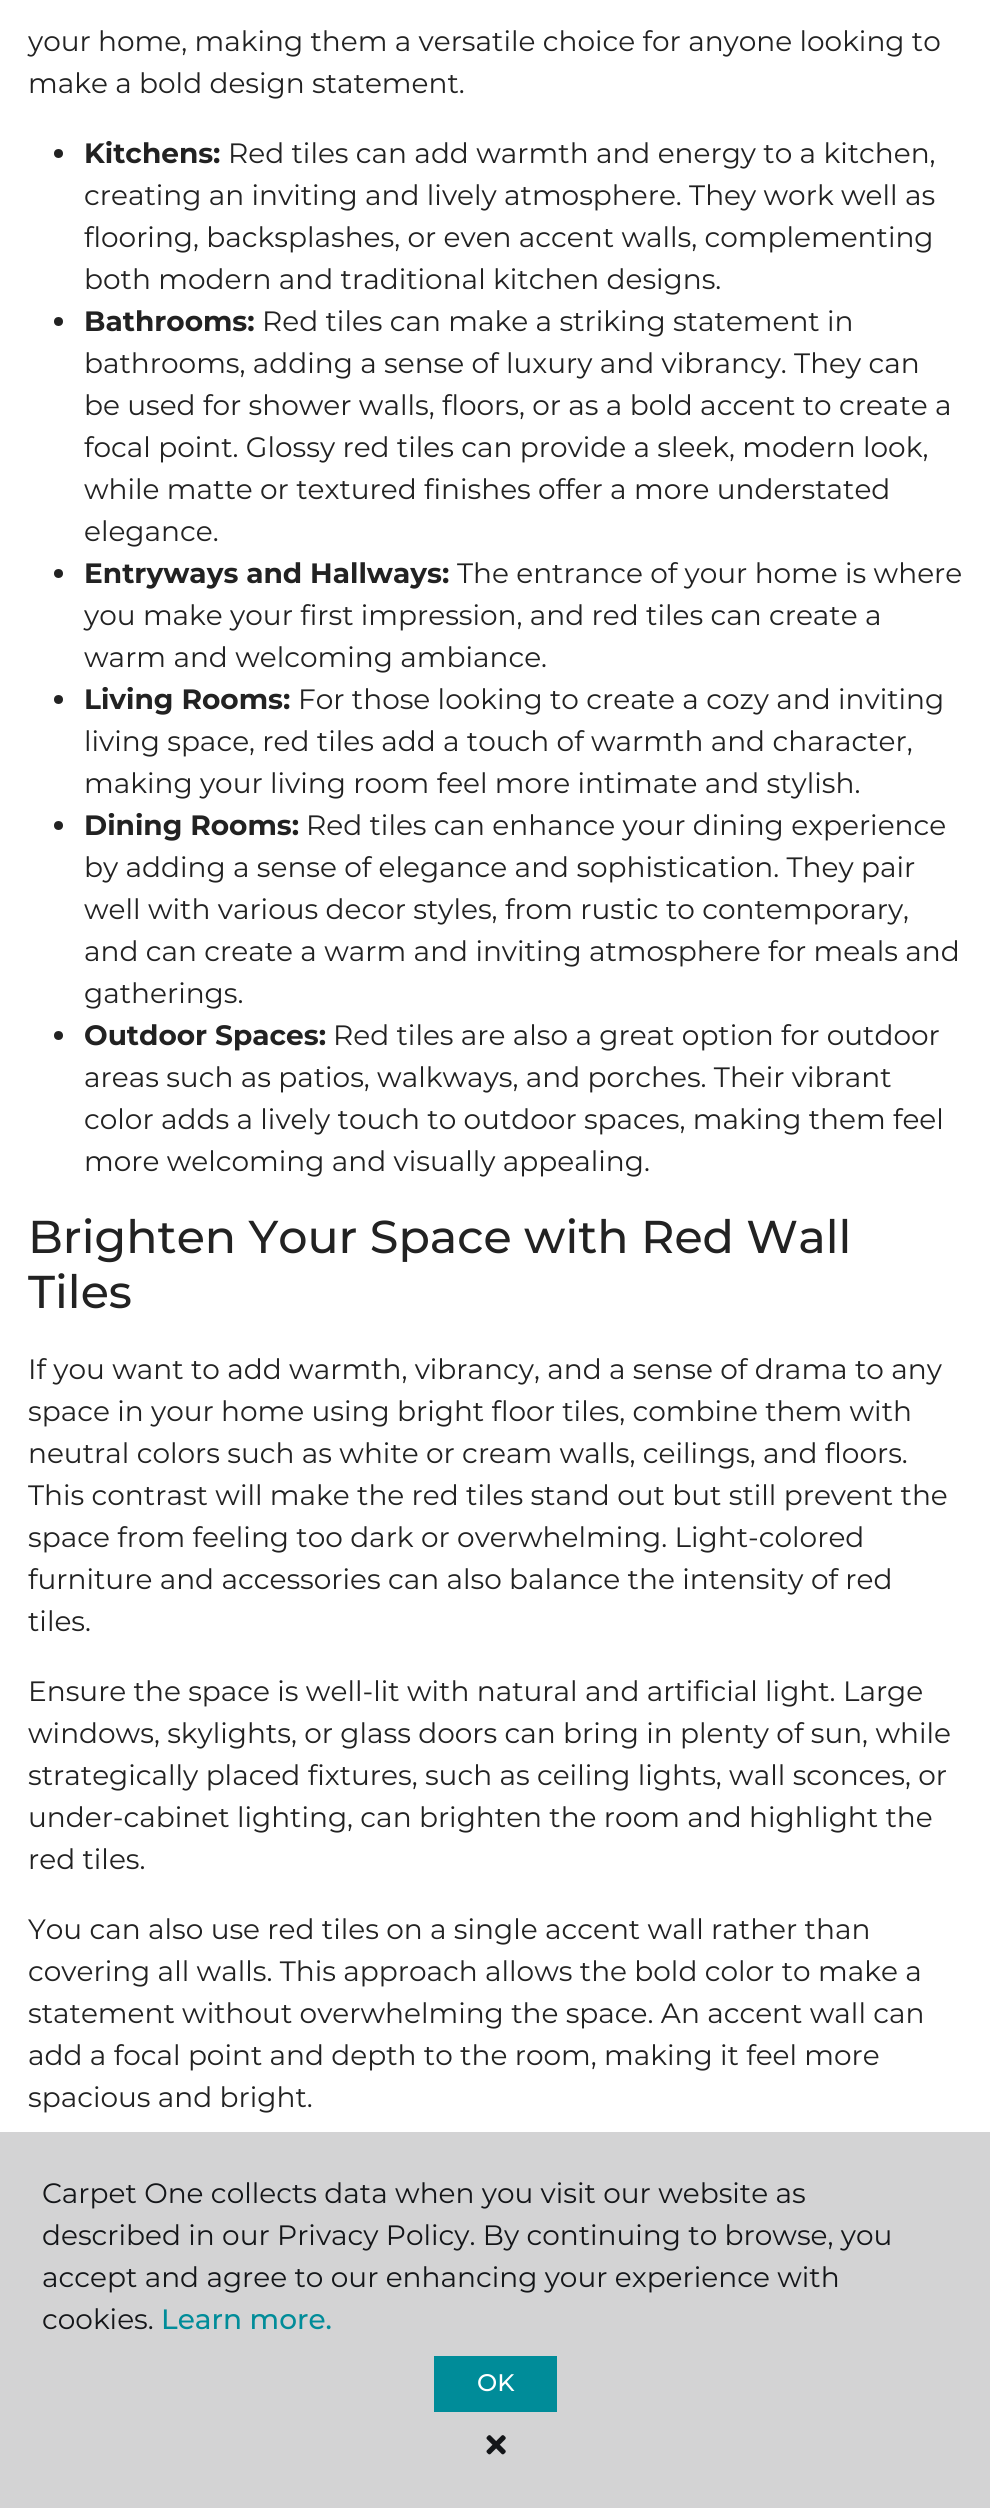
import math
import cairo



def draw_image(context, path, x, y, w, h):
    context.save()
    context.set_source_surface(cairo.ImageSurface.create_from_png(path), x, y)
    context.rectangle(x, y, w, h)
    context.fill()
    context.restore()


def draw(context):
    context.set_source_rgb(1, 1, 1)
    context.paint()
    context.set_source_rgb(34 / 255, 34 / 255, 34 / 255)
    context.arc(58.5, 153.5, 4.5, 0, 2 * math.pi)
    context.fill()
    context.arc(58.5, 321.5, 4.5, 0, 2 * math.pi)
    context.fill()
    context.arc(58.5, 573.5, 4.5, 0, 2 * math.pi)
    context.fill()
    context.arc(58.5, 699.5, 4.5, 0, 2 * math.pi)
    context.fill()
    context.arc(58.5, 825.5, 4.5, 0, 2 * math.pi)
    context.fill()
    context.arc(58.5, 1035.5, 4.5, 0, 2 * math.pi)
    context.fill()
    context.set_source_rgb(211 / 255, 211 / 255, 212 / 255)
    context.rectangle(0, 2132, 990, 376)
    context.fill()
    context.set_source_rgb(0, 140 / 255, 153 / 255)
    context.rectangle(434, 2356, 123, 56)
    context.fill()
    draw_image(context, "images/1.png", 486, 2435, 20, 20)
    context.select_font_face("Montserrat")
    context.set_font_size(28)
    context.set_source_rgb(34 / 255, 34 / 255, 34 / 255)
    context.move_to(28, 51)
    context.show_text("your home, making them a versatile choice for anyone looking to")
    context.move_to(28, 93)
    context.show_text("make a bold design statement.")
    context.select_font_face("Montserrat", cairo.FontSlant.NORMAL, cairo.FontWeight.BOLD)
    context.move_to(84, 163)
    context.show_text("Kitchens:")
    context.select_font_face("Montserrat")
    context.move_to(228, 163)
    context.show_text("Red tiles can add warmth and energy to a kitchen,")
    context.move_to(84, 205)
    context.show_text("creating an inviting and lively atmosphere. They work well as")
    context.move_to(84, 247)
    context.show_text("flooring, backsplashes, or even accent walls, complementing")
    context.move_to(84, 289)
    context.show_text("both modern and traditional kitchen designs.")
    context.select_font_face("Montserrat", cairo.FontSlant.NORMAL, cairo.FontWeight.BOLD)
    context.move_to(84, 331)
    context.show_text("Bathrooms:")
    context.select_font_face("Montserrat")
    context.move_to(262, 331)
    context.show_text("Red tiles can make a striking statement in")
    context.move_to(84, 373)
    context.show_text("bathrooms, adding a sense of luxury and vibrancy. They can")
    context.move_to(84, 415)
    context.show_text("be used for shower walls, floors, or as a bold accent to create a")
    context.move_to(84, 457)
    context.show_text("focal point. Glossy red tiles can provide a sleek, modern look,")
    context.move_to(84, 499)
    context.show_text("while matte or textured finishes offer a more understated")
    context.move_to(84, 541)
    context.show_text("elegance.")
    context.select_font_face("Montserrat", cairo.FontSlant.NORMAL, cairo.FontWeight.BOLD)
    context.move_to(84, 583)
    context.show_text("Entryways and Hallways:")
    context.select_font_face("Montserrat")
    context.move_to(457, 583)
    context.show_text("The entrance of your home is where")
    context.move_to(84, 625)
    context.show_text("you make your first impression, and red tiles can create a")
    context.move_to(84, 667)
    context.show_text("warm and welcoming ambiance.")
    context.select_font_face("Montserrat", cairo.FontSlant.NORMAL, cairo.FontWeight.BOLD)
    context.move_to(84, 709)
    context.show_text("Living Rooms:")
    context.select_font_face("Montserrat")
    context.move_to(298, 709)
    context.show_text("For those looking to create a cozy and inviting")
    context.move_to(84, 751)
    context.show_text("living space, red tiles add a touch of warmth and character,")
    context.move_to(84, 793)
    context.show_text("making your living room feel more intimate and stylish.")
    context.select_font_face("Montserrat", cairo.FontSlant.NORMAL, cairo.FontWeight.BOLD)
    context.move_to(84, 835)
    context.show_text("Dining Rooms:")
    context.select_font_face("Montserrat")
    context.move_to(306, 835)
    context.show_text("Red tiles can enhance your dining experience")
    context.move_to(84, 877)
    context.show_text("by adding a sense of elegance and sophistication. They pair")
    context.move_to(84, 919)
    context.show_text("well with various decor styles, from rustic to contemporary,")
    context.move_to(84, 961)
    context.show_text("and can create a warm and inviting atmosphere for meals and")
    context.move_to(84, 1003)
    context.show_text("gatherings.")
    context.select_font_face("Montserrat", cairo.FontSlant.NORMAL, cairo.FontWeight.BOLD)
    context.move_to(84, 1045)
    context.show_text("Outdoor Spaces:")
    context.select_font_face("Montserrat")
    context.move_to(333, 1045)
    context.show_text("Red tiles are also a great option for outdoor")
    context.move_to(84, 1087)
    context.show_text("areas such as patios, walkways, and porches. Their vibrant")
    context.move_to(84, 1129)
    context.show_text("color adds a lively touch to outdoor spaces, making them feel")
    context.move_to(84, 1171)
    context.show_text("more welcoming and visually appealing.")
    context.select_font_face("Montserrat Medium")
    context.set_font_size(46)
    context.move_to(28, 1253)
    context.show_text("Brighten Your Space with Red Wall")
    context.move_to(28, 1308)
    context.show_text("Tiles")
    context.select_font_face("Montserrat")
    context.set_font_size(28)
    context.move_to(28, 1379)
    context.show_text("If you want to add warmth, vibrancy, and a sense of drama to any")
    context.move_to(28, 1421)
    context.show_text("space in your home using bright floor tiles, combine them with")
    context.move_to(28, 1463)
    context.show_text("neutral colors such as white or cream walls, ceilings, and floors.")
    context.move_to(28, 1505)
    context.show_text("This contrast will make the red tiles stand out but still prevent the")
    context.move_to(28, 1547)
    context.show_text("space from feeling too dark or overwhelming. Light-colored")
    context.move_to(28, 1589)
    context.show_text("furniture and accessories can also balance the intensity of red")
    context.move_to(28, 1631)
    context.show_text("tiles.")
    context.move_to(28, 1701)
    context.show_text("Ensure the space is well-lit with natural and artificial light. Large")
    context.move_to(28, 1743)
    context.show_text("windows, skylights, or glass doors can bring in plenty of sun, while")
    context.move_to(28, 1785)
    context.show_text("strategically placed fixtures, such as ceiling lights, wall sconces, or")
    context.move_to(28, 1827)
    context.show_text("under-cabinet lighting, can brighten the room and highlight the")
    context.move_to(28, 1869)
    context.show_text("red tiles.")
    context.move_to(28, 1939)
    context.show_text("You can also use red tiles on a single accent wall rather than")
    context.move_to(28, 1981)
    context.show_text("covering all walls. This approach allows the bold color to make a")
    context.move_to(28, 2023)
    context.show_text("statement without overwhelming the space. An accent wall can")
    context.move_to(28, 2065)
    context.show_text("add a focal point and depth to the room, making it feel more")
    context.move_to(28, 2107)
    context.show_text("spacious and bright.")
    context.set_source_rgb(20 / 255, 22 / 255, 25 / 255)
    context.move_to(42, 2203)
    context.show_text("Carpet One collects data when you visit our website as")
    context.move_to(42, 2245)
    context.show_text("described in our Privacy Policy. By continuing to browse, you")
    context.move_to(42, 2287)
    context.show_text("accept and agree to our enhancing your experience with")
    context.move_to(42, 2329)
    context.show_text("cookies.")
    context.select_font_face("Montserrat Medium")
    context.set_source_rgb(0, 140 / 255, 153 / 255)
    context.move_to(161, 2329)
    context.show_text("Learn more.")
    context.set_font_size(24)
    context.set_source_rgb(1, 1, 1)
    context.move_to(477, 2391)
    context.show_text("OK")


surface = cairo.ImageSurface(cairo.Format.RGB24, 990, 2508)
context = cairo.Context(surface)
options = cairo.FontOptions()
options.set_hint_metrics(cairo.HintMetrics.OFF)
options.set_hint_style(cairo.HintStyle.NONE)
context.set_font_options(options)
context.set_miter_limit(4)
draw(context)
surface.write_to_png("out.png")
